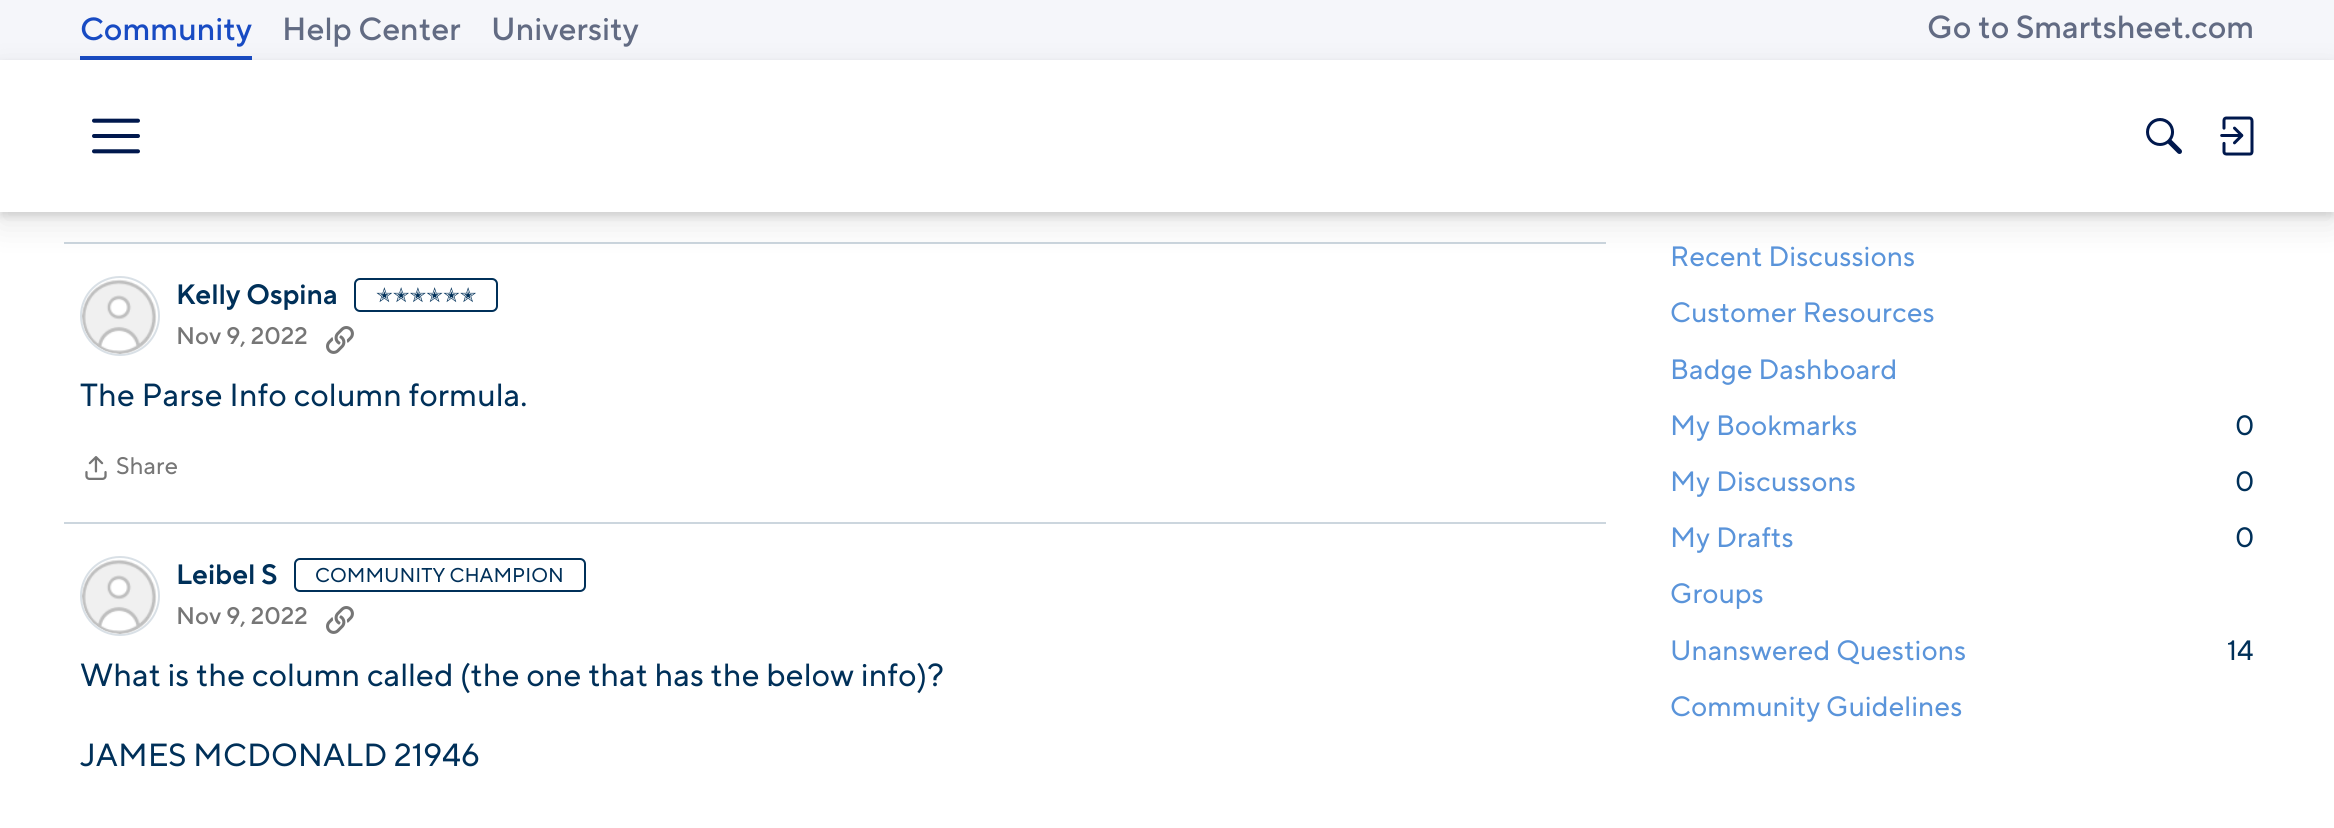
import math
import cairo



def rounded_rect(context, x, y, w, h, r):
    context.new_sub_path()
    for i, (u, v) in enumerate([(x + w - r, y + h - r), (x + r, y + h - r), (x + r, y + r), (x + w - r, y + r)]):
        context.arc(u, v, r, i * math.pi / 2, (i + 1) * math.pi / 2)
    context.close_path()


def draw_shadow(context, x, y, w, h, r, blur, alpha):
    context.push_group_with_content(cairo.Content.ALPHA)
    context.set_operator(cairo.Operator.SOURCE)
    for i in range(15, -16, -2):
        e = blur * i / 6
        if min(w, h) + 2 * e > 0:
            context.set_source_rgba(0, 0, 0, alpha * math.erfc((i - 1) / 8.5) / 2)
            rounded_rect(context, x - e, y - e, w + 2 * e, h + 2 * e, max(0, min(r + e + blur * .6, min(w, h) / 2 + e)))
            context.fill()
    context.mask(context.pop_group())


def draw_image(context, path, x, y, w, h):
    context.save()
    context.set_source_surface(cairo.ImageSurface.create_from_png(path), x, y)
    context.rectangle(x, y, w, h)
    context.fill()
    context.restore()


def draw(context):
    context.set_source_rgb(1, 1, 1)
    context.paint()
    context.set_source_rgb(245 / 255, 246 / 255, 250 / 255)
    context.rectangle(0, 0, 2334, 60)
    context.fill()
    context.set_source_rgb(24 / 255, 75 / 255, 195 / 255)
    context.rectangle(80, 56, 172, 4)
    context.fill()
    context.set_source_rgb(204 / 255, 214 / 255, 222 / 255)
    context.rectangle(64, 242, 1542, 2)
    context.fill()
    context.set_source_rgb(0, 0, 0)
    draw_shadow(context, 0, 72, 2334, 152, 0, 16, 0.1)
    draw_shadow(context, 0, 64, 2334, 152, 0, 4, 0.12)
    context.set_source_rgb(1, 1, 1)
    context.rectangle(0, 60, 2334, 152)
    context.fill()
    draw_image(context, "images/1.png", 92, 118, 48, 36)
    draw_image(context, "images/2.png", 2146, 118, 36, 36)
    draw_image(context, "images/3.png", 2220, 116, 34, 40)
    context.arc(120, 316, 39, 0, 2 * math.pi)
    context.set_source_rgb(217 / 255, 224 / 255, 230 / 255)
    context.stroke()
    draw_image(context, "images/4.png", 82, 279, 75, 75)
    rounded_rect(context, 355, 279, 142, 32, 5)
    context.set_source_rgb(0, 48 / 255, 89 / 255)
    context.stroke()
    draw_image(context, "images/5.png", 326, 326, 28, 28)
    draw_image(context, "images/6.png", 85, 456, 22, 24)
    context.set_source_rgb(204 / 255, 214 / 255, 222 / 255)
    context.rectangle(64, 522, 1542, 2)
    context.fill()
    context.arc(120, 596, 39, 0, 2 * math.pi)
    context.set_source_rgb(217 / 255, 224 / 255, 230 / 255)
    context.stroke()
    draw_image(context, "images/4.png", 82, 559, 75, 75)
    rounded_rect(context, 295, 559, 290, 32, 5)
    context.set_source_rgb(0, 48 / 255, 89 / 255)
    context.stroke()
    draw_image(context, "images/5.png", 326, 606, 28, 28)
    context.select_font_face("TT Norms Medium")
    context.set_font_size(32)
    context.set_source_rgb(24 / 255, 75 / 255, 195 / 255)
    context.move_to(80, 40)
    context.show_text("Community")
    context.set_source_rgb(98 / 255, 107 / 255, 131 / 255)
    context.move_to(282, 40)
    context.show_text("Help Center")
    context.move_to(491, 40)
    context.show_text("University")
    context.move_to(1927, 38)
    context.show_text("Go to Smartsheet.com")
    context.select_font_face("TT Norms SemiBold")
    context.set_font_size(28)
    context.set_source_rgb(0, 48 / 255, 89 / 255)
    context.move_to(176, 304)
    context.show_text("Kelly Ospina")
    context.select_font_face("DejaVu Sans")
    context.set_font_size(20)
    context.move_to(376, 302)
    context.show_text("✭✭✭✭✭✭")
    context.select_font_face("TT Norms Medium")
    context.set_font_size(24)
    context.set_source_rgb(118 / 255, 118 / 255, 118 / 255)
    context.move_to(176, 344)
    context.show_text("Nov 9, 2022")
    context.select_font_face("TT Norms")
    context.set_font_size(32)
    context.set_source_rgb(0, 48 / 255, 89 / 255)
    context.move_to(80, 406)
    context.show_text("The Parse Info column formula.")
    context.set_font_size(24)
    context.set_source_rgb(118 / 255, 118 / 255, 118 / 255)
    context.move_to(116, 474)
    context.show_text("Share")
    context.select_font_face("TT Norms SemiBold")
    context.set_font_size(28)
    context.set_source_rgb(0, 48 / 255, 89 / 255)
    context.move_to(176, 584)
    context.show_text("Leibel S")
    context.select_font_face("TT Norms")
    context.set_font_size(20)
    context.move_to(315, 582)
    context.show_text("COMMUNITY CHAMPION")
    context.select_font_face("TT Norms Medium")
    context.set_font_size(24)
    context.set_source_rgb(118 / 255, 118 / 255, 118 / 255)
    context.move_to(176, 624)
    context.show_text("Nov 9, 2022")
    context.select_font_face("TT Norms")
    context.set_font_size(32)
    context.set_source_rgb(0, 48 / 255, 89 / 255)
    context.move_to(80, 686)
    context.show_text("What is the column called (the one that has the below info)?")
    context.move_to(80, 766)
    context.show_text("JAMES MCDONALD 21946")
    context.set_font_size(28)
    context.set_source_rgb(90 / 255, 148 / 255, 218 / 255)
    context.move_to(1670, 266)
    context.show_text("Recent Discussions")
    context.move_to(1670, 322)
    context.show_text("Customer Resources")
    context.move_to(1670, 379)
    context.show_text("Badge Dashboard")
    context.move_to(1670, 435)
    context.show_text("My Bookmarks")
    context.set_source_rgb(0, 48 / 255, 89 / 255)
    context.move_to(2235, 435)
    context.show_text("0")
    context.set_source_rgb(90 / 255, 148 / 255, 218 / 255)
    context.move_to(1670, 491)
    context.show_text("My Discussons")
    context.set_source_rgb(0, 48 / 255, 89 / 255)
    context.move_to(2235, 491)
    context.show_text("0")
    context.set_source_rgb(90 / 255, 148 / 255, 218 / 255)
    context.move_to(1670, 547)
    context.show_text("My Drafts")
    context.set_source_rgb(0, 48 / 255, 89 / 255)
    context.move_to(2235, 547)
    context.show_text("0")
    context.set_source_rgb(90 / 255, 148 / 255, 218 / 255)
    context.move_to(1670, 603)
    context.show_text("Groups")
    context.move_to(1670, 660)
    context.show_text("Unanswered Questions")
    context.set_source_rgb(0, 48 / 255, 89 / 255)
    context.move_to(2227, 660)
    context.show_text("14")
    context.set_source_rgb(90 / 255, 148 / 255, 218 / 255)
    context.move_to(1670, 716)
    context.show_text("Community Guidelines")


surface = cairo.ImageSurface(cairo.Format.RGB24, 2334, 828)
context = cairo.Context(surface)
options = cairo.FontOptions()
options.set_hint_metrics(cairo.HintMetrics.OFF)
options.set_hint_style(cairo.HintStyle.NONE)
context.set_font_options(options)
context.set_miter_limit(4)
draw(context)
surface.write_to_png("out.png")
